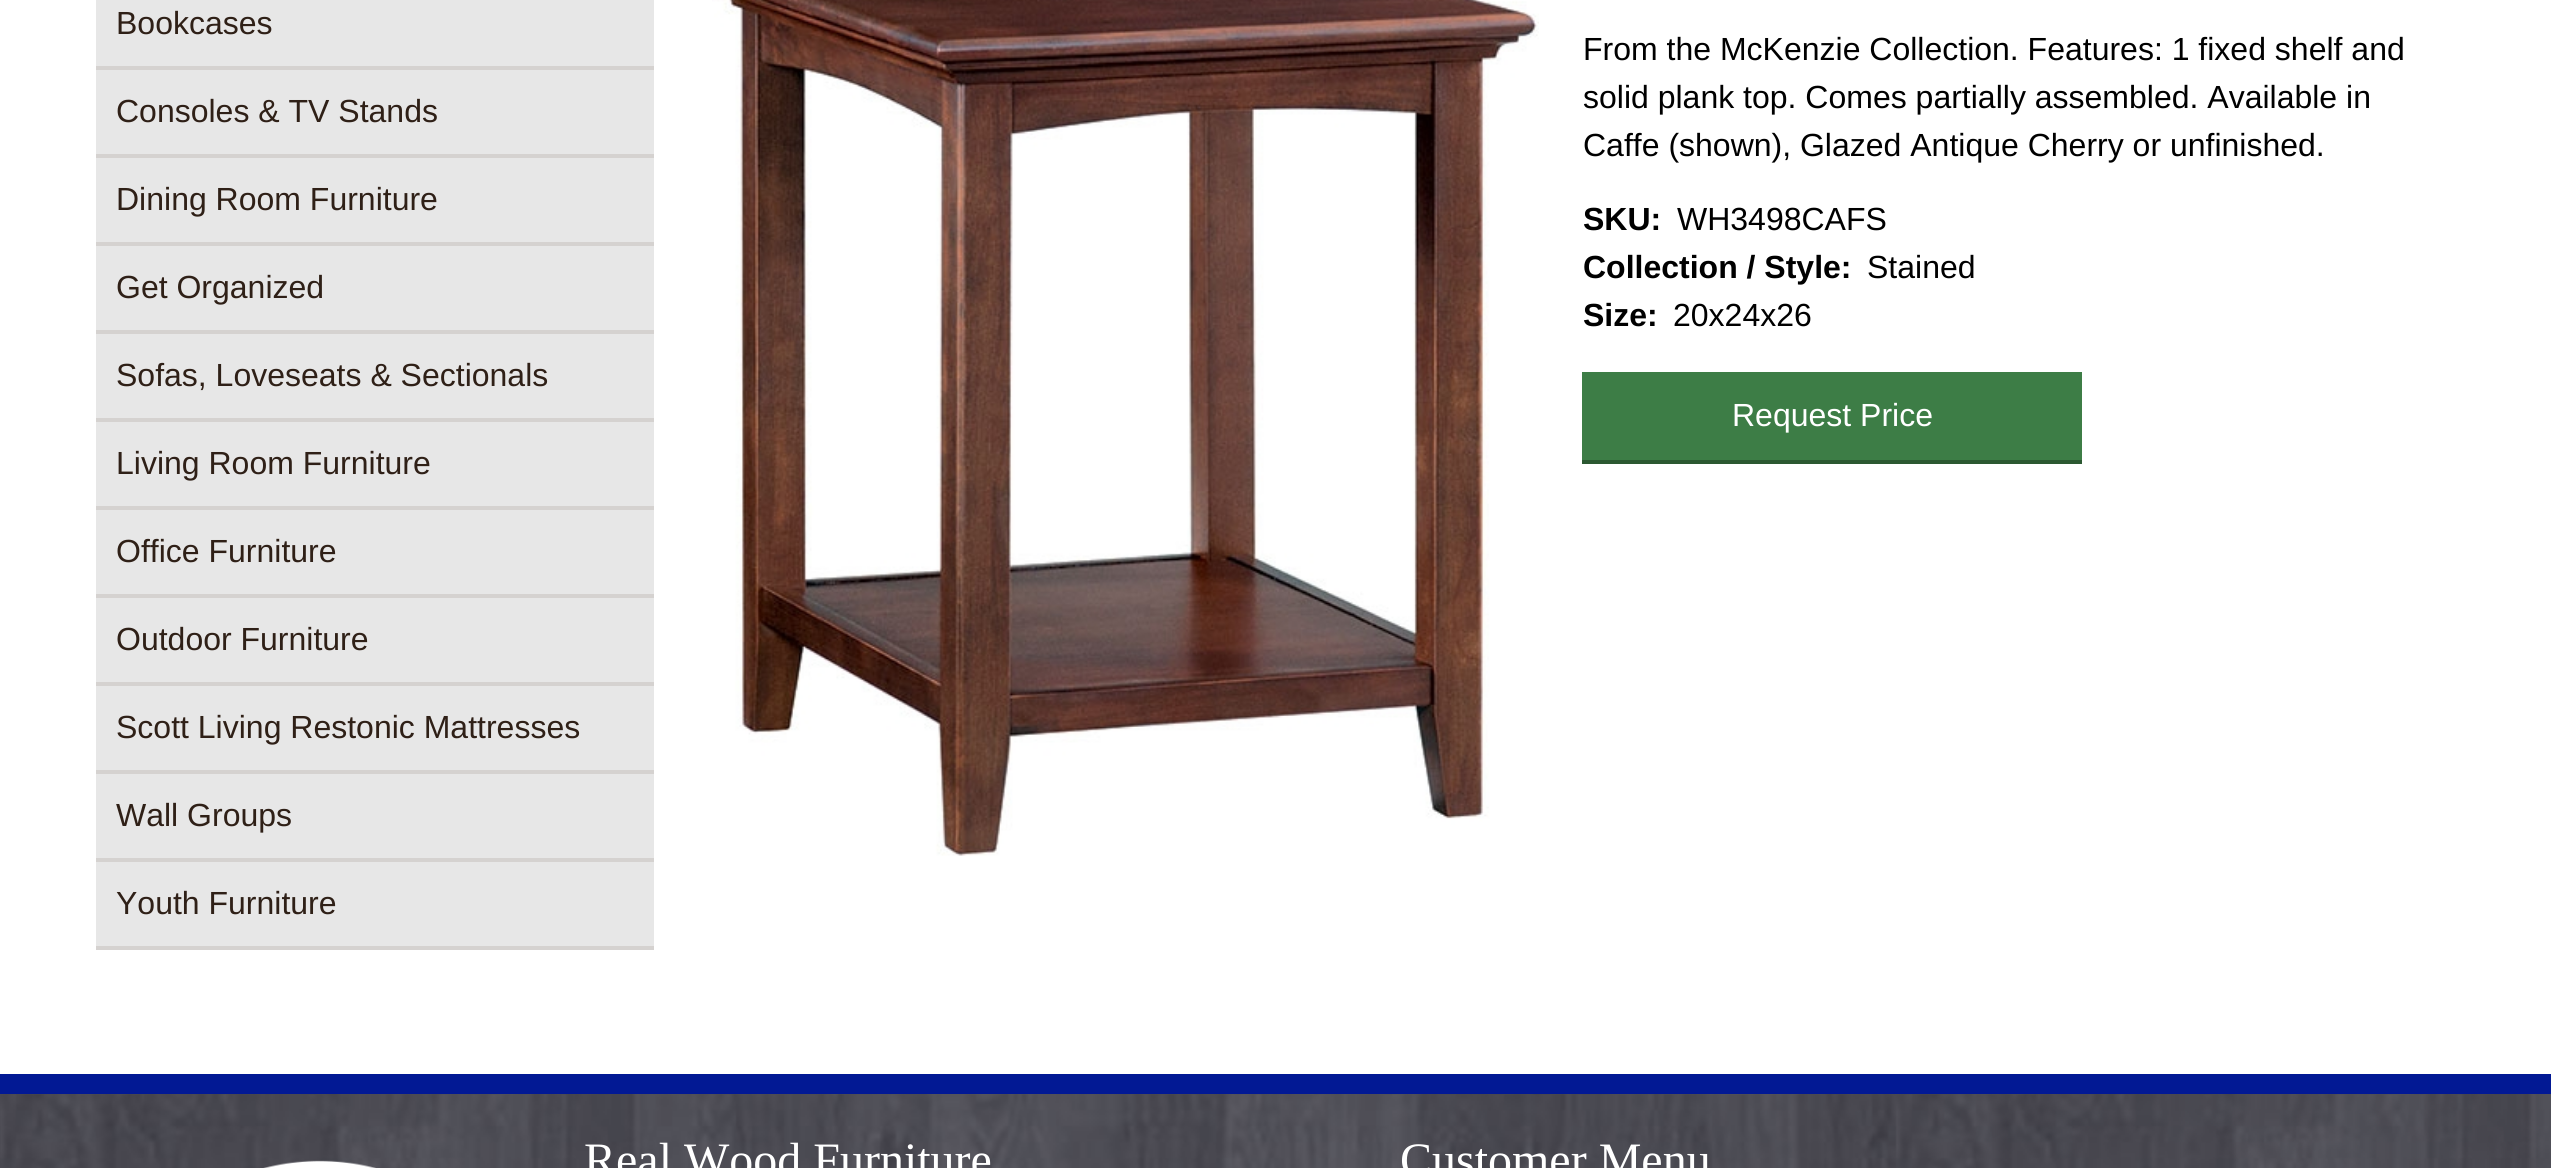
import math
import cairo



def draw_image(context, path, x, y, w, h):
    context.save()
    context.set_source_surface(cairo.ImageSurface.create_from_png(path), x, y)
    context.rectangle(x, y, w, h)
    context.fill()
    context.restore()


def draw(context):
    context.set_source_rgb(1, 1, 1)
    context.paint()
    context.set_source_rgb(231 / 255, 231 / 255, 231 / 255)
    context.rectangle(96, 0, 558, 946)
    context.fill()
    context.set_source_rgb(213 / 255, 210 / 255, 208 / 255)
    context.rectangle(96, 66, 558, 4)
    context.fill()
    context.rectangle(96, 154, 558, 4)
    context.fill()
    context.rectangle(96, 242, 558, 4)
    context.fill()
    context.rectangle(96, 330, 558, 4)
    context.fill()
    context.rectangle(96, 418, 558, 4)
    context.fill()
    context.rectangle(96, 506, 558, 4)
    context.fill()
    context.rectangle(96, 594, 558, 4)
    context.fill()
    context.rectangle(96, 682, 558, 4)
    context.fill()
    context.rectangle(96, 770, 558, 4)
    context.fill()
    context.rectangle(96, 858, 558, 4)
    context.fill()
    context.rectangle(96, 946, 558, 4)
    context.fill()
    draw_image(context, "images/1.png", 712, 0, 827, 856)
    context.set_source_rgb(61 / 255, 125 / 255, 70 / 255)
    context.rectangle(1582, 372, 500, 88)
    context.fill()
    context.set_source_rgb(43 / 255, 88 / 255, 49 / 255)
    context.rectangle(1582, 460, 500, 4)
    context.fill()
    draw_image(context, "images/2.png", 0, 1094, 2551, 74)
    context.set_source_rgb(2 / 255, 25 / 255, 148 / 255)
    context.rectangle(0, 1074, 2551, 20)
    context.fill()
    draw_image(context, "images/3.png", 263, 1160, 113, 8)
    context.select_font_face("Liberation Sans")
    context.set_font_size(32)
    context.set_source_rgb(47 / 255, 32 / 255, 23 / 255)
    context.move_to(116, 34)
    context.show_text("Bookcases")
    context.move_to(116, 122)
    context.show_text("Consoles & TV Stands")
    context.move_to(116, 210)
    context.show_text("Dining Room Furniture")
    context.move_to(116, 298)
    context.show_text("Get Organized")
    context.move_to(116, 386)
    context.show_text("Sofas, Loveseats & Sectionals")
    context.move_to(116, 474)
    context.show_text("Living Room Furniture")
    context.move_to(116, 562)
    context.show_text("Office Furniture")
    context.move_to(116, 650)
    context.show_text("Outdoor Furniture")
    context.move_to(116, 738)
    context.show_text("Scott Living Restonic Mattresses")
    context.move_to(116, 826)
    context.show_text("Wall Groups")
    context.move_to(116, 914)
    context.show_text("Youth Furniture")
    context.set_source_rgb(0, 0, 0)
    context.move_to(1583, 60)
    context.show_text("From the McKenzie Collection. Features: 1 fixed shelf and")
    context.move_to(1583, 108)
    context.show_text("solid plank top. Comes partially assembled. Available in")
    context.move_to(1583, 156)
    context.show_text("Caffe (shown), Glazed Antique Cherry or unfinished.")
    context.select_font_face("Liberation Sans", cairo.FontSlant.NORMAL, cairo.FontWeight.BOLD)
    context.move_to(1583, 230)
    context.show_text("SKU:")
    context.select_font_face("Liberation Sans")
    context.move_to(1677, 230)
    context.show_text("WH3498CAFS")
    context.select_font_face("Liberation Sans", cairo.FontSlant.NORMAL, cairo.FontWeight.BOLD)
    context.move_to(1583, 278)
    context.show_text("Collection / Style:")
    context.select_font_face("Liberation Sans")
    context.move_to(1867, 278)
    context.show_text("Stained")
    context.select_font_face("Liberation Sans", cairo.FontSlant.NORMAL, cairo.FontWeight.BOLD)
    context.move_to(1583, 326)
    context.show_text("Size:")
    context.select_font_face("Liberation Sans")
    context.move_to(1673, 326)
    context.show_text("20x24x26")
    context.set_source_rgb(1, 1, 1)
    context.move_to(1732, 426)
    context.show_text("Request Price")
    context.select_font_face("Liberation Serif")
    context.set_font_size(48)
    context.move_to(584, 1176)
    context.show_text("Real Wood Furniture")
    context.move_to(1400, 1176)
    context.show_text("Customer Menu")


surface = cairo.ImageSurface(cairo.Format.RGB24, 2551, 1168)
context = cairo.Context(surface)
options = cairo.FontOptions()
options.set_hint_metrics(cairo.HintMetrics.OFF)
options.set_hint_style(cairo.HintStyle.NONE)
context.set_font_options(options)
context.set_miter_limit(4)
draw(context)
surface.write_to_png("out.png")
